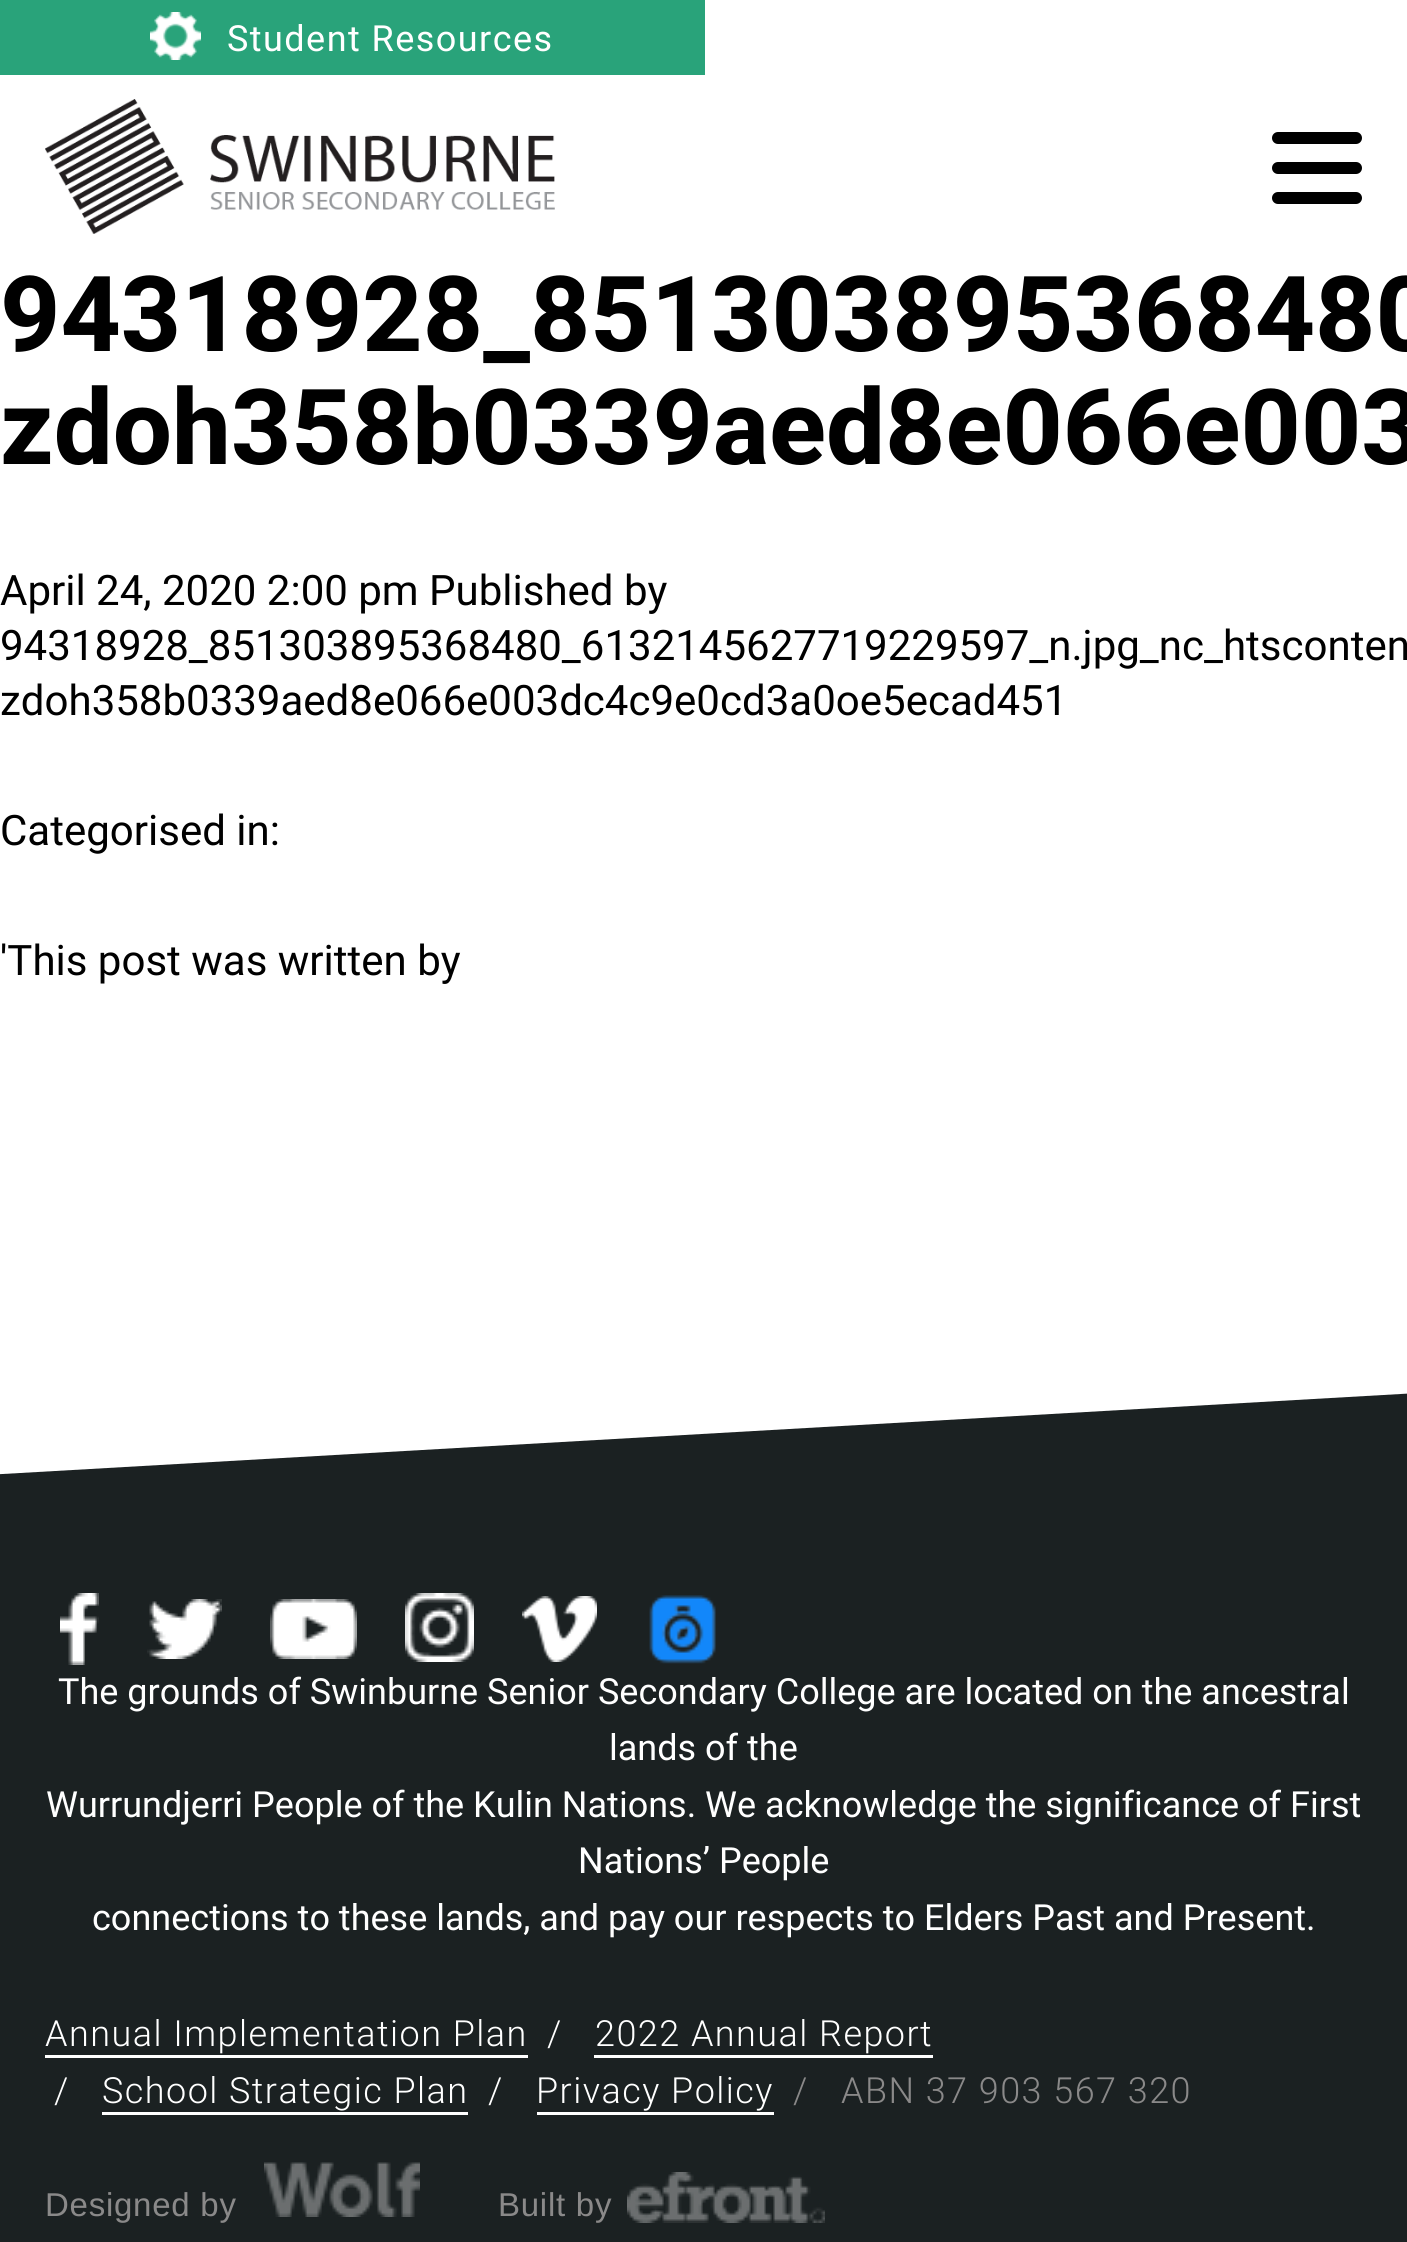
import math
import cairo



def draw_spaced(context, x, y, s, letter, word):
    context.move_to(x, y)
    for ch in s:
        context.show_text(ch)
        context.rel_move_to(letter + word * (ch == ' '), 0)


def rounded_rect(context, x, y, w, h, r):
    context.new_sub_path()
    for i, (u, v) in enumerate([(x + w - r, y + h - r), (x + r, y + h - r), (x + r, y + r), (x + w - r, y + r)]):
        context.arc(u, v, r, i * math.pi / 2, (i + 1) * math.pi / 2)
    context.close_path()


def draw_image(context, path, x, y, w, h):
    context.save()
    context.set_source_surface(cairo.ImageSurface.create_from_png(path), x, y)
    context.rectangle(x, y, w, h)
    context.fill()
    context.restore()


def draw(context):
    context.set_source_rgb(1, 1, 1)
    context.paint()
    context.set_source_rgb(41 / 255, 163 / 255, 122 / 255)
    context.rectangle(0, 0, 705, 75)
    context.fill()
    draw_image(context, "images/1.png", 150, 12, 51, 48)
    draw_image(context, "images/2.png", 45, 99, 510, 135)
    context.set_source_rgb(0, 0, 0)
    rounded_rect(context, 1272, 132, 90, 12, 6)
    context.fill()
    rounded_rect(context, 1272, 162, 90, 12, 6)
    context.fill()
    rounded_rect(context, 1272, 192, 90, 12, 6)
    context.fill()
    context.set_source_rgb(27 / 255, 33 / 255, 34 / 255)
    context.rectangle(0, 1738, 1407, 504)
    context.fill()
    context.new_path()
    context.move_to(-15, 1475)
    context.line_to(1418, 1393)
    context.line_to(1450, 1953)
    context.line_to(17, 2036)
    context.close_path()
    context.fill()
    draw_image(context, "images/3.png", 60, 1593, 39, 72)
    draw_image(context, "images/4.png", 147, 1599, 75, 60)
    draw_image(context, "images/5.png", 270, 1599, 87, 60)
    draw_image(context, "images/6.png", 405, 1593, 69, 69)
    draw_image(context, "images/7.png", 522, 1596, 75, 66)
    draw_image(context, "images/8.png", 649, 1595, 67, 69)
    context.set_source_rgb(1, 1, 1)
    context.rectangle(45, 2055, 483, 3)
    context.fill()
    context.rectangle(594, 2055, 339, 3)
    context.fill()
    context.rectangle(102, 2112, 366, 3)
    context.fill()
    context.rectangle(537, 2112, 237, 3)
    context.fill()
    draw_image(context, "images/9.png", 264, 2162, 156, 55)
    draw_image(context, "images/10.png", 627, 2172, 198, 51)
    context.select_font_face("Heebo")
    context.set_font_size(36)
    draw_spaced(context, 227, 51, "Student Resources", 1.45, 0)
    context.select_font_face("Heebo", cairo.FontSlant.NORMAL, cairo.FontWeight.BOLD)
    context.set_font_size(105)
    context.set_source_rgb(0, 0, 0)
    context.move_to(0, 351)
    context.show_text("94318928_851303895368480")
    context.move_to(0, 464)
    context.show_text("zdoh358b0339aed8e066e003")
    context.select_font_face("Heebo")
    context.set_font_size(42)
    context.move_to(0, 605)
    context.show_text("April 24, 2020 2:00 pm Published by")
    context.move_to(0, 660)
    context.show_text("94318928_851303895368480_6132145627719229597_n.jpg_nc_htsconten")
    context.move_to(0, 715)
    context.show_text("zdoh358b0339aed8e066e003dc4c9e0cd3a0oe5ecad451")
    context.move_to(0, 845)
    context.show_text("Categorised in:")
    context.move_to(0, 975)
    context.show_text("'This post was written by")
    context.set_font_size(36)
    context.set_source_rgb(1, 1, 1)
    context.move_to(58, 1704)
    context.show_text("The grounds of Swinburne Senior Secondary College are located on the ancestral")
    context.move_to(609, 1760)
    context.show_text("lands of the")
    context.move_to(46, 1817)
    context.show_text("Wurrundjerri People of the Kulin Nations. We acknowledge the significance of First")
    context.move_to(578, 1873)
    context.show_text("Nations’ People")
    context.move_to(92, 1930)
    context.show_text("connections to these lands, and pay our respects to Elders Past and Present.")
    context.select_font_face("Heebo Light")
    draw_spaced(context, 45, 2046, "Annual Implementation Plan", 1.45, 0)
    draw_spaced(context, 547, 2046, "/", 1.45, 0)
    draw_spaced(context, 595, 2046, "2022 Annual Report", 1.45, 0)
    draw_spaced(context, 54, 2103, "/", 1.45, 0)
    draw_spaced(context, 102, 2103, "School Strategic Plan", 1.45, 0)
    draw_spaced(context, 488, 2103, "/", 1.45, 0)
    draw_spaced(context, 536, 2103, "Privacy Policy", 1.45, 0)
    context.set_source_rgb(138 / 255, 137 / 255, 137 / 255)
    draw_spaced(context, 793, 2103, "/", 1.45, 0)
    draw_spaced(context, 841, 2103, "ABN 37 903 567 320", 1.45, 0)
    context.select_font_face("Liberation Sans")
    context.set_font_size(33)
    draw_spaced(context, 45, 2216, "Designed by", 0.75, 0)
    draw_spaced(context, 498, 2216, "Built by", 0.75, 0)


surface = cairo.ImageSurface(cairo.Format.RGB24, 1407, 2242)
context = cairo.Context(surface)
options = cairo.FontOptions()
options.set_hint_metrics(cairo.HintMetrics.OFF)
options.set_hint_style(cairo.HintStyle.NONE)
context.set_font_options(options)
context.set_miter_limit(4)
draw(context)
surface.write_to_png("out.png")
